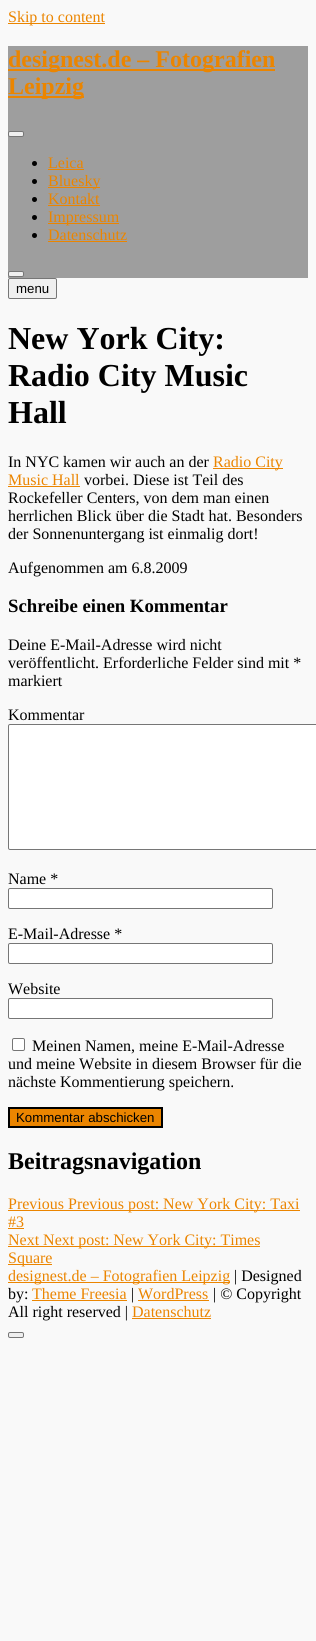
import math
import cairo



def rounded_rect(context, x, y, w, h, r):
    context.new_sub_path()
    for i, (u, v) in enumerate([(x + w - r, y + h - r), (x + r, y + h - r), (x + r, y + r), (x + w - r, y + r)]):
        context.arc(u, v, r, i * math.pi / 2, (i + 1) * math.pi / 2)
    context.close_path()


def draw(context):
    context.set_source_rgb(249 / 255, 249 / 255, 249 / 255)
    context.paint()
    context.set_source_rgb(235 / 255, 133 / 255, 0)
    context.rectangle(8, 23, 97, 1)
    context.fill()
    context.set_source_rgb(158 / 255, 158 / 255, 158 / 255)
    context.rectangle(8, 46, 300, 232)
    context.fill()
    context.set_source_rgb(235 / 255, 133 / 255, 0)
    context.rectangle(8, 69, 267, 2)
    context.fill()
    context.rectangle(8, 96, 76, 2)
    context.fill()
    context.set_source_rgb(239 / 255, 239 / 255, 239 / 255)
    rounded_rect(context, 8.5, 131.5, 15, 5, 1.5)
    context.fill_preserve()
    context.set_source_rgb(118 / 255, 118 / 255, 118 / 255)
    context.set_line_width(1)
    context.stroke()
    context.set_source_rgb(0, 0, 0)
    context.arc(34.5, 163.5, 2.5, 0, 2 * math.pi)
    context.fill()
    context.set_source_rgb(235 / 255, 133 / 255, 0)
    context.rectangle(48, 169, 36, 1)
    context.fill()
    context.set_source_rgb(0, 0, 0)
    context.arc(34.5, 181.5, 2.5, 0, 2 * math.pi)
    context.fill()
    context.set_source_rgb(235 / 255, 133 / 255, 0)
    context.rectangle(48, 187, 52, 1)
    context.fill()
    context.set_source_rgb(0, 0, 0)
    context.arc(34.5, 199.5, 2.5, 0, 2 * math.pi)
    context.fill()
    context.set_source_rgb(235 / 255, 133 / 255, 0)
    context.rectangle(48, 205, 52, 1)
    context.fill()
    context.set_source_rgb(0, 0, 0)
    context.arc(34.5, 217.5, 2.5, 0, 2 * math.pi)
    context.fill()
    context.set_source_rgb(235 / 255, 133 / 255, 0)
    context.rectangle(48, 223, 71, 1)
    context.fill()
    context.set_source_rgb(0, 0, 0)
    context.arc(34.5, 235.5, 2.5, 0, 2 * math.pi)
    context.fill()
    context.set_source_rgb(235 / 255, 133 / 255, 0)
    context.rectangle(48, 241, 79, 1)
    context.fill()
    context.set_source_rgb(239 / 255, 239 / 255, 239 / 255)
    rounded_rect(context, 8.5, 271.5, 15, 5, 1.5)
    context.fill_preserve()
    context.set_source_rgb(118 / 255, 118 / 255, 118 / 255)
    context.stroke()
    context.set_source_rgb(239 / 255, 239 / 255, 239 / 255)
    rounded_rect(context, 8.5, 278.5, 48, 20, 1.5)
    context.fill_preserve()
    context.set_source_rgb(118 / 255, 118 / 255, 118 / 255)
    context.stroke()
    context.set_source_rgb(235 / 255, 133 / 255, 0)
    context.rectangle(213, 468, 70, 1)
    context.fill()
    context.rectangle(8, 486, 72, 1)
    context.fill()
    context.set_source_rgb(1, 1, 1)
    rounded_rect(context, 8.5, 724.5, 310, 125, 1.5)
    context.fill_preserve()
    context.set_source_rgb(118 / 255, 118 / 255, 118 / 255)
    context.stroke()
    context.set_source_rgb(1, 1, 1)
    rounded_rect(context, 8.5, 888.5, 264, 20, 1.5)
    context.fill_preserve()
    context.set_source_rgb(118 / 255, 118 / 255, 118 / 255)
    context.stroke()
    context.set_source_rgb(1, 1, 1)
    rounded_rect(context, 8.5, 943.5, 264, 20, 1.5)
    context.fill_preserve()
    context.set_source_rgb(118 / 255, 118 / 255, 118 / 255)
    context.stroke()
    context.set_source_rgb(1, 1, 1)
    rounded_rect(context, 8.5, 998.5, 264, 20, 1.5)
    context.fill_preserve()
    context.set_source_rgb(118 / 255, 118 / 255, 118 / 255)
    context.stroke()
    context.set_source_rgb(1, 1, 1)
    rounded_rect(context, 12.5, 1038.5, 12, 12, 1.5)
    context.fill_preserve()
    context.set_source_rgb(118 / 255, 118 / 255, 118 / 255)
    context.stroke()
    context.set_source_rgb(235 / 255, 133 / 255, 0)
    context.rectangle(9, 1108, 153, 19)
    context.fill_preserve()
    context.set_source_rgb(0, 0, 0)
    context.set_line_width(2)
    context.stroke()
    context.set_source_rgb(235 / 255, 133 / 255, 0)
    context.rectangle(8, 1210, 292, 1)
    context.fill()
    context.rectangle(8, 1228, 16, 1)
    context.fill()
    context.rectangle(8, 1246, 252, 1)
    context.fill()
    context.rectangle(8, 1264, 44, 1)
    context.fill()
    context.rectangle(8, 1282, 222, 1)
    context.fill()
    context.rectangle(32, 1300, 95, 1)
    context.fill()
    context.rectangle(138, 1300, 71, 1)
    context.fill()
    context.rectangle(132, 1318, 79, 1)
    context.fill()
    context.set_source_rgb(239 / 255, 239 / 255, 239 / 255)
    rounded_rect(context, 8.5, 1332.5, 15, 5, 1.5)
    context.fill_preserve()
    context.set_source_rgb(118 / 255, 118 / 255, 118 / 255)
    context.set_line_width(1)
    context.stroke()
    context.select_font_face("Liberation Serif")
    context.set_font_size(16)
    context.set_source_rgb(235 / 255, 133 / 255, 0)
    context.move_to(8, 22)
    context.show_text("Skip to content")
    context.select_font_face("Liberation Serif", cairo.FontSlant.NORMAL, cairo.FontWeight.BOLD)
    context.set_font_size(24)
    context.move_to(8, 67)
    context.show_text("designest.de – Fotografien")
    context.move_to(8, 94)
    context.show_text("Leipzig")
    context.select_font_face("Liberation Serif")
    context.set_font_size(16)
    context.move_to(48, 168)
    context.show_text("Leica")
    context.move_to(48, 186)
    context.show_text("Bluesky")
    context.move_to(48, 204)
    context.show_text("Kontakt")
    context.move_to(48, 222)
    context.show_text("Impressum")
    context.move_to(48, 240)
    context.show_text("Datenschutz")
    context.select_font_face("Liberation Sans")
    context.set_font_size(13.25)
    context.set_source_rgb(0, 0, 0)
    context.move_to(16, 293)
    context.show_text("menu")
    context.select_font_face("Liberation Serif", cairo.FontSlant.NORMAL, cairo.FontWeight.BOLD)
    context.set_font_size(32)
    context.move_to(8, 349)
    context.show_text("New York City:")
    context.move_to(8, 386)
    context.show_text("Radio City Music")
    context.move_to(8, 423)
    context.show_text("Hall")
    context.select_font_face("Liberation Serif")
    context.set_font_size(16)
    context.move_to(8, 467)
    context.show_text("In NYC kamen wir auch an der")
    context.set_source_rgb(235 / 255, 133 / 255, 0)
    context.move_to(213, 467)
    context.show_text("Radio City")
    context.move_to(8, 485)
    context.show_text("Music Hall")
    context.set_source_rgb(0, 0, 0)
    context.move_to(84, 485)
    context.show_text("vorbei. Diese ist Teil des")
    context.move_to(8, 503)
    context.show_text("Rockefeller Centers, von dem man einen")
    context.move_to(8, 521)
    context.show_text("herrlichen Blick über die Stadt hat. Besonders")
    context.move_to(8, 539)
    context.show_text("der Sonnenuntergang ist einmalig dort!")
    context.move_to(8, 573)
    context.show_text("Aufgenommen am 6.8.2009")
    context.select_font_face("Liberation Serif", cairo.FontSlant.NORMAL, cairo.FontWeight.BOLD)
    context.set_font_size(18.75)
    context.move_to(8, 612)
    context.show_text("Schreibe einen Kommentar")
    context.select_font_face("Liberation Serif")
    context.set_font_size(16)
    context.move_to(8, 650)
    context.show_text("Deine E-Mail-Adresse wird nicht")
    context.move_to(8, 668)
    context.show_text("veröffentlicht. Erforderliche Felder sind mit *")
    context.move_to(8, 686)
    context.show_text("markiert")
    context.move_to(8, 720)
    context.show_text("Kommentar")
    context.move_to(8, 884)
    context.show_text("Name *")
    context.move_to(8, 939)
    context.show_text("E-Mail-Adresse *")
    context.move_to(8, 994)
    context.show_text("Website")
    context.move_to(32, 1051)
    context.show_text("Meinen Namen, meine E-Mail-Adresse")
    context.move_to(8, 1069)
    context.show_text("und meine Website in diesem Browser für die")
    context.move_to(8, 1087)
    context.show_text("nächste Kommentierung speichern.")
    context.select_font_face("Liberation Sans")
    context.set_font_size(13.25)
    context.move_to(16, 1122)
    context.show_text("Kommentar abschicken")
    context.select_font_face("Liberation Serif", cairo.FontSlant.NORMAL, cairo.FontWeight.BOLD)
    context.set_font_size(24)
    context.move_to(8, 1169)
    context.show_text("Beitragsnavigation")
    context.select_font_face("Liberation Serif")
    context.set_font_size(16)
    context.set_source_rgb(235 / 255, 133 / 255, 0)
    context.move_to(8, 1209)
    context.show_text("Previous Previous post: New York City: Taxi")
    context.move_to(8, 1227)
    context.show_text("#3")
    context.move_to(8, 1245)
    context.show_text("Next Next post: New York City: Times")
    context.move_to(8, 1263)
    context.show_text("Square")
    context.move_to(8, 1281)
    context.show_text("designest.de – Fotografien Leipzig")
    context.set_source_rgb(0, 0, 0)
    context.move_to(234, 1281)
    context.show_text("| Designed")
    context.move_to(8, 1299)
    context.show_text("by:")
    context.set_source_rgb(235 / 255, 133 / 255, 0)
    context.move_to(32, 1299)
    context.show_text("Theme Freesia")
    context.set_source_rgb(0, 0, 0)
    context.move_to(131, 1299)
    context.show_text("|")
    context.set_source_rgb(235 / 255, 133 / 255, 0)
    context.move_to(138, 1299)
    context.show_text("WordPress")
    context.set_source_rgb(0, 0, 0)
    context.move_to(213, 1299)
    context.show_text("| © Copyright")
    context.move_to(8, 1317)
    context.show_text("All right reserved |")
    context.set_source_rgb(235 / 255, 133 / 255, 0)
    context.move_to(132, 1317)
    context.show_text("Datenschutz")


surface = cairo.ImageSurface(cairo.Format.RGB24, 316, 1641)
context = cairo.Context(surface)
options = cairo.FontOptions()
options.set_hint_metrics(cairo.HintMetrics.OFF)
options.set_hint_style(cairo.HintStyle.NONE)
context.set_font_options(options)
context.set_miter_limit(4)
draw(context)
surface.write_to_png("out.png")
